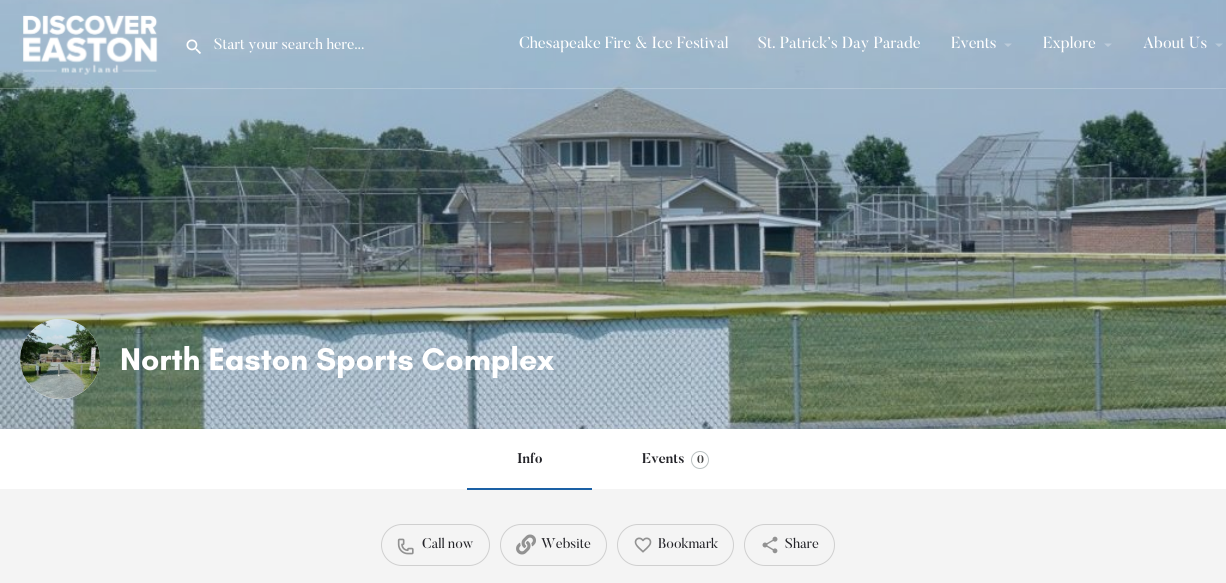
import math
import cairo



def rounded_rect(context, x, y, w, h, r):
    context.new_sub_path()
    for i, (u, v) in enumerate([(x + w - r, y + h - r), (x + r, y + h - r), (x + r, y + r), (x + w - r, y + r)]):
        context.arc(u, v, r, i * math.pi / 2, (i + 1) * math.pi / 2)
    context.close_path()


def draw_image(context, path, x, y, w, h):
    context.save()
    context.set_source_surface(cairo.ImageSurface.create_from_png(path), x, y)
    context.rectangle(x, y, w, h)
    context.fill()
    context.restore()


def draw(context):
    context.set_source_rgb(244 / 255, 244 / 255, 244 / 255)
    context.paint()
    draw_image(context, "images/3.png", 0, 0, 1226, 429)
    draw_image(context, "images/1.png", 23, 15, 135, 60)
    draw_image(context, "images/2.png", 186, 39, 15, 15)
    context.set_source_rgb(187 / 255, 203 / 255, 218 / 255)
    context.new_path()
    context.move_to(1004, 43.5)
    context.line_to(1012, 43.5)
    context.line_to(1008, 47)
    context.close_path()
    context.fill()
    context.set_source_rgb(188 / 255, 203 / 255, 218 / 255)
    context.new_path()
    context.move_to(1104, 43.5)
    context.line_to(1112, 43.5)
    context.line_to(1108, 47)
    context.close_path()
    context.fill()
    context.set_source_rgb(183 / 255, 201 / 255, 217 / 255)
    context.new_path()
    context.move_to(1215, 43.5)
    context.line_to(1223, 43.5)
    context.line_to(1219, 47)
    context.close_path()
    context.fill()
    context.set_source_rgba(1, 1, 1, 0.2)
    context.rectangle(0, 88, 1226, 1)
    context.fill()
    context.set_source_rgb(221 / 255, 229 / 255, 230 / 255)
    context.arc(60, 359, 40, 0, 2 * math.pi)
    context.fill()
    draw_image(context, "images/4.png", 20, 319, 80, 80)
    context.set_source_rgb(1, 1, 1)
    context.rectangle(0, 429, 1226, 60)
    context.fill()
    context.set_source_rgb(26 / 255, 96 / 255, 165 / 255)
    context.rectangle(467, 488, 125, 2)
    context.fill()
    context.arc(700, 460, 8.5, 0, 2 * math.pi)
    context.set_source_rgb(186 / 255, 193 / 255, 193 / 255)
    context.set_line_width(1)
    context.stroke()
    rounded_rect(context, 381.5, 524.5, 108, 41, 20.5)
    context.set_source_rgb(207 / 255, 207 / 255, 207 / 255)
    context.stroke()
    draw_image(context, "images/5.png", 397, 538, 17, 17)
    rounded_rect(context, 500.5, 524.5, 106, 41, 20.5)
    context.stroke()
    draw_image(context, "images/6.png", 516, 534, 20, 21)
    rounded_rect(context, 617.5, 524.5, 116, 41, 20.5)
    context.stroke()
    draw_image(context, "images/7.png", 634, 537, 18, 16)
    rounded_rect(context, 744.5, 524.5, 90, 41, 20.5)
    context.stroke()
    draw_image(context, "images/8.png", 762, 536, 16, 18)
    context.select_font_face("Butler")
    context.set_font_size(15)
    context.set_source_rgb(1, 1, 1)
    context.move_to(214, 49)
    context.show_text("Start your search here...")
    context.set_font_size(16)
    context.move_to(519, 48)
    context.show_text("Chesapeake Fire & Ice Festival")
    context.move_to(758, 48)
    context.show_text("St. Patrick’s Day Parade")
    context.move_to(951, 48)
    context.show_text("Events")
    context.move_to(1043, 48)
    context.show_text("Explore")
    context.move_to(1143, 48)
    context.show_text("About Us")
    context.select_font_face("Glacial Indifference", cairo.FontSlant.NORMAL, cairo.FontWeight.BOLD)
    context.set_font_size(32)
    context.move_to(120, 370)
    context.show_text("North Easton Sports Complex")
    context.select_font_face("Butler", cairo.FontSlant.NORMAL, cairo.FontWeight.BOLD)
    context.set_font_size(14)
    context.set_source_rgb(36 / 255, 36 / 255, 41 / 255)
    context.move_to(517, 463)
    context.show_text("Info")
    context.move_to(642, 463)
    context.show_text("Events")
    context.set_font_size(11)
    context.set_source_rgb(72 / 255, 72 / 255, 72 / 255)
    context.move_to(697, 463)
    context.show_text("0")
    context.select_font_face("Butler")
    context.set_font_size(14)
    context.set_source_rgb(36 / 255, 36 / 255, 41 / 255)
    context.move_to(422, 548)
    context.show_text("Call now")
    context.move_to(541, 548)
    context.show_text("Website")
    context.move_to(658, 548)
    context.show_text("Bookmark")
    context.move_to(785, 548)
    context.show_text("Share")


surface = cairo.ImageSurface(cairo.Format.RGB24, 1226, 583)
context = cairo.Context(surface)
options = cairo.FontOptions()
options.set_hint_metrics(cairo.HintMetrics.OFF)
options.set_hint_style(cairo.HintStyle.NONE)
context.set_font_options(options)
context.set_miter_limit(4)
draw(context)
surface.write_to_png("out.png")
